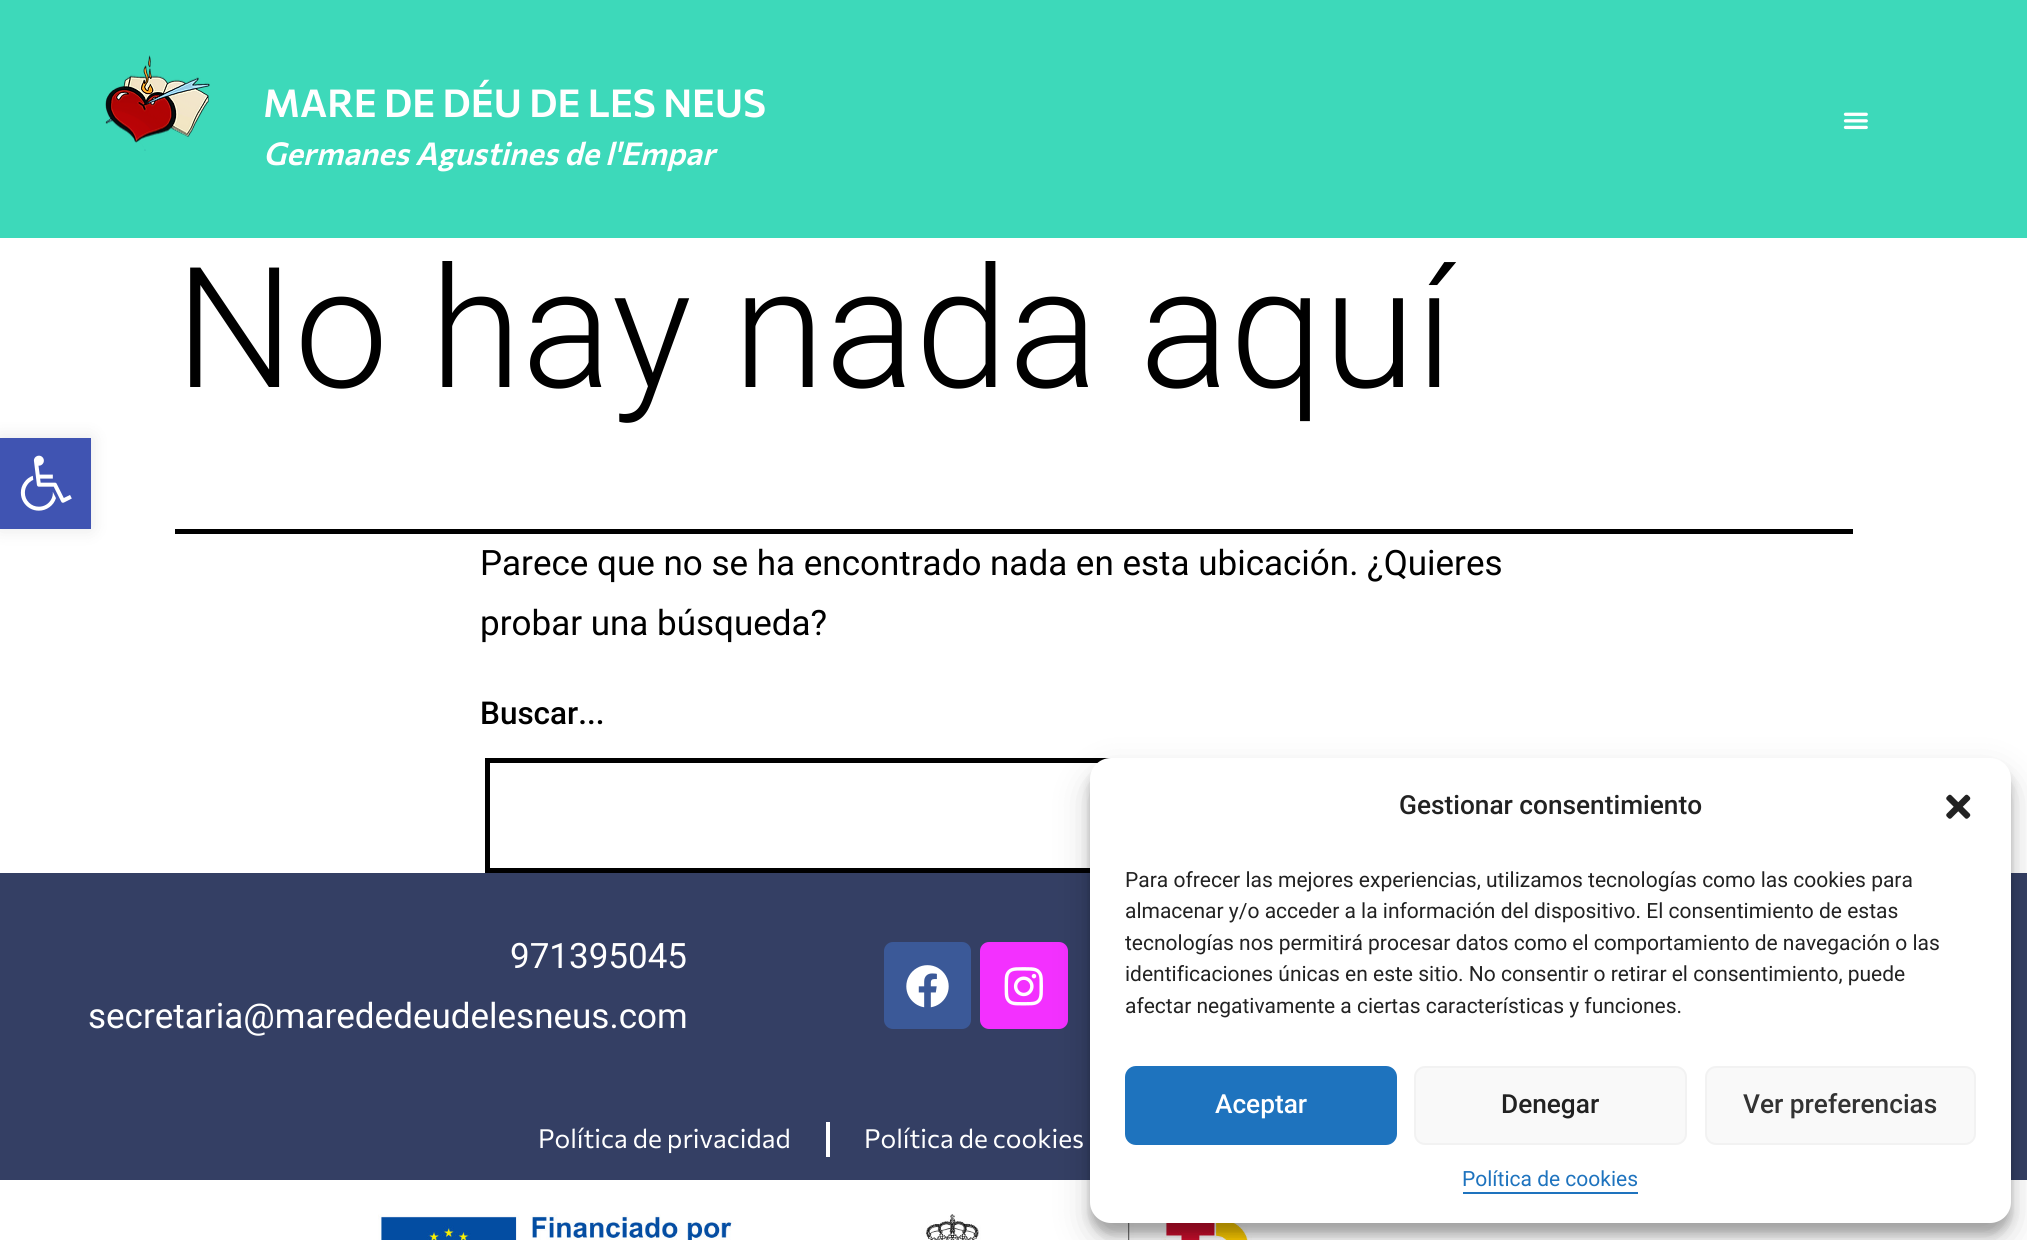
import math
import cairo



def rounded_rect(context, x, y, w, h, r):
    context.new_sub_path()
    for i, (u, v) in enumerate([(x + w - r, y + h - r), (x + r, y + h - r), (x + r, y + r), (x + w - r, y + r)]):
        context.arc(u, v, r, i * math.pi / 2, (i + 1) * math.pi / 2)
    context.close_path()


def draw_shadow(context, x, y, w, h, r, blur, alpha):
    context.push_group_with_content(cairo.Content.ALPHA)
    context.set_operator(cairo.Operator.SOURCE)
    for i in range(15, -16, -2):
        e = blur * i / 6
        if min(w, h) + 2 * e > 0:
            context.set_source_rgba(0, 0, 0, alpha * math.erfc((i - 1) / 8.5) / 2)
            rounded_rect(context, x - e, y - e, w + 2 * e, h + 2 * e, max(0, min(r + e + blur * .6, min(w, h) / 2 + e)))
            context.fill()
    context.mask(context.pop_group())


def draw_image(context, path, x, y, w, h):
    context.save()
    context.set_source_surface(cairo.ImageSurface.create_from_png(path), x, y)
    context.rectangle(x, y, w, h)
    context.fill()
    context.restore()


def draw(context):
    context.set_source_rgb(1, 1, 1)
    context.paint()
    context.set_source_rgb(61 / 255, 217 / 255, 186 / 255)
    context.rectangle(0, 0, 2027, 238)
    context.fill()
    draw_image(context, "images/1.png", 105, 55, 105, 96)
    draw_image(context, "images/2.png", 1843, 112, 25, 18)
    context.set_source_rgb(0, 0, 0)
    context.rectangle(175, 529, 1678, 5)
    context.fill()
    context.set_source_rgb(0, 0, 0)
    draw_shadow(context, 0, 438, 91, 91, 0, 9, 0.1)
    context.set_source_rgb(64 / 255, 84 / 255, 178 / 255)
    context.rectangle(0, 438, 91, 91)
    context.fill()
    draw_image(context, "images/3.png", 20, 455, 52, 56)
    context.rectangle(487.5, 760.5, 788, 110)
    context.set_source_rgb(0, 0, 0)
    context.set_line_width(5)
    context.stroke()
    context.set_source_rgb(52 / 255, 63 / 255, 100 / 255)
    context.rectangle(0, 873, 2027, 307)
    context.fill()
    context.set_source_rgb(59 / 255, 89 / 255, 152 / 255)
    rounded_rect(context, 884, 942, 87, 87, 9)
    context.fill()
    draw_image(context, "images/4.png", 906, 965, 43, 43)
    context.set_source_rgb(243 / 255, 48 / 255, 1)
    rounded_rect(context, 980, 942, 88, 87, 9)
    context.fill()
    draw_image(context, "images/5.png", 1004, 967, 39, 39)
    context.set_source_rgb(1, 1, 1)
    context.rectangle(826, 1122, 4, 35)
    context.fill()
    draw_image(context, "images/6.png", 378, 1214, 874, 26)
    context.set_source_rgb(0, 0, 0)
    draw_shadow(context, 1090, 768, 921, 466, 21, 5, 0.23)
    draw_shadow(context, 1090, 775, 921, 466, 21, 17.5, 0.19)
    context.set_source_rgb(1, 1, 1)
    rounded_rect(context, 1090, 758, 921, 465, 21)
    context.fill()
    draw_image(context, "images/7.png", 1946, 794, 25, 25)
    context.set_source_rgb(30 / 255, 115 / 255, 190 / 255)
    rounded_rect(context, 1126, 1067, 270, 77, 10)
    context.fill_preserve()
    context.set_line_width(2)
    context.stroke()
    context.set_source_rgb(249 / 255, 249 / 255, 249 / 255)
    rounded_rect(context, 1415, 1067, 271, 77, 10)
    context.fill_preserve()
    context.set_source_rgb(242 / 255, 242 / 255, 242 / 255)
    context.stroke()
    context.set_source_rgb(249 / 255, 249 / 255, 249 / 255)
    rounded_rect(context, 1706, 1067, 269, 77, 10)
    context.fill_preserve()
    context.set_source_rgb(242 / 255, 242 / 255, 242 / 255)
    context.stroke()
    context.set_source_rgb(30 / 255, 115 / 255, 190 / 255)
    context.rectangle(1463, 1192, 175, 2)
    context.fill()
    context.select_font_face("Commissioner SemiBold")
    context.set_font_size(38.5)
    context.set_source_rgb(1, 1, 1)
    context.move_to(263, 117)
    context.show_text("MARE DE DÉU DE LES NEUS")
    context.select_font_face("Commissioner SemiBold", cairo.FontSlant.ITALIC)
    context.set_font_size(31.5)
    context.move_to(263, 165)
    context.show_text("Germanes Agustines de l'Empar")
    context.select_font_face("Roboto Light")
    context.set_font_size(168)
    context.set_source_rgb(0, 0, 0)
    context.move_to(175, 387)
    context.show_text("No hay nada aquí")
    context.select_font_face("Roboto")
    context.set_font_size(35)
    context.move_to(480, 575)
    context.show_text("Parece que no se ha encontrado nada en esta ubicación. ¿Quieres")
    context.move_to(480, 635)
    context.show_text("probar una búsqueda?")
    context.select_font_face("Roboto Medium")
    context.set_font_size(31.5)
    context.move_to(480, 724)
    context.show_text("Buscar...")
    context.select_font_face("Roboto")
    context.set_font_size(35)
    context.set_source_rgb(1, 1, 1)
    context.move_to(510, 968)
    context.show_text("971395045")
    context.move_to(88, 1028)
    context.show_text("secretaria@marededeudelesneus.com")
    context.select_font_face("Commissioner")
    context.set_font_size(26.25)
    context.move_to(538, 1148)
    context.show_text("Política de privacidad")
    context.move_to(864, 1148)
    context.show_text("Política de cookies")
    context.select_font_face("Roboto Medium")
    context.set_source_rgb(34 / 255, 34 / 255, 34 / 255)
    context.move_to(1399, 814)
    context.show_text("Gestionar consentimiento")
    context.select_font_face("Roboto")
    context.set_font_size(21)
    context.move_to(1125, 887)
    context.show_text("Para ofrecer las mejores experiencias, utilizamos tecnologías como las cookies para")
    context.move_to(1125, 918)
    context.show_text("almacenar y/o acceder a la información del dispositivo. El consentimiento de estas")
    context.move_to(1125, 950)
    context.show_text("tecnologías nos permitirá procesar datos como el comportamiento de navegación o las")
    context.move_to(1125, 981)
    context.show_text("identificaciones únicas en este sitio. No consentir o retirar el consentimiento, puede")
    context.move_to(1125, 1013)
    context.show_text("afectar negativamente a ciertas características y funciones.")
    context.select_font_face("Roboto Medium")
    context.set_font_size(26.25)
    context.set_source_rgb(1, 1, 1)
    context.move_to(1215, 1113)
    context.show_text("Aceptar")
    context.set_source_rgb(34 / 255, 34 / 255, 34 / 255)
    context.move_to(1501, 1113)
    context.show_text("Denegar")
    context.set_source_rgb(51 / 255, 51 / 255, 51 / 255)
    context.move_to(1743, 1113)
    context.show_text("Ver preferencias")
    context.select_font_face("Roboto")
    context.set_font_size(21)
    context.set_source_rgb(30 / 255, 115 / 255, 190 / 255)
    context.move_to(1462, 1186)
    context.show_text("Política de cookies")


surface = cairo.ImageSurface(cairo.Format.RGB24, 2027, 1240)
context = cairo.Context(surface)
options = cairo.FontOptions()
options.set_hint_metrics(cairo.HintMetrics.OFF)
options.set_hint_style(cairo.HintStyle.NONE)
context.set_font_options(options)
context.set_miter_limit(4)
draw(context)
surface.write_to_png("out.png")
